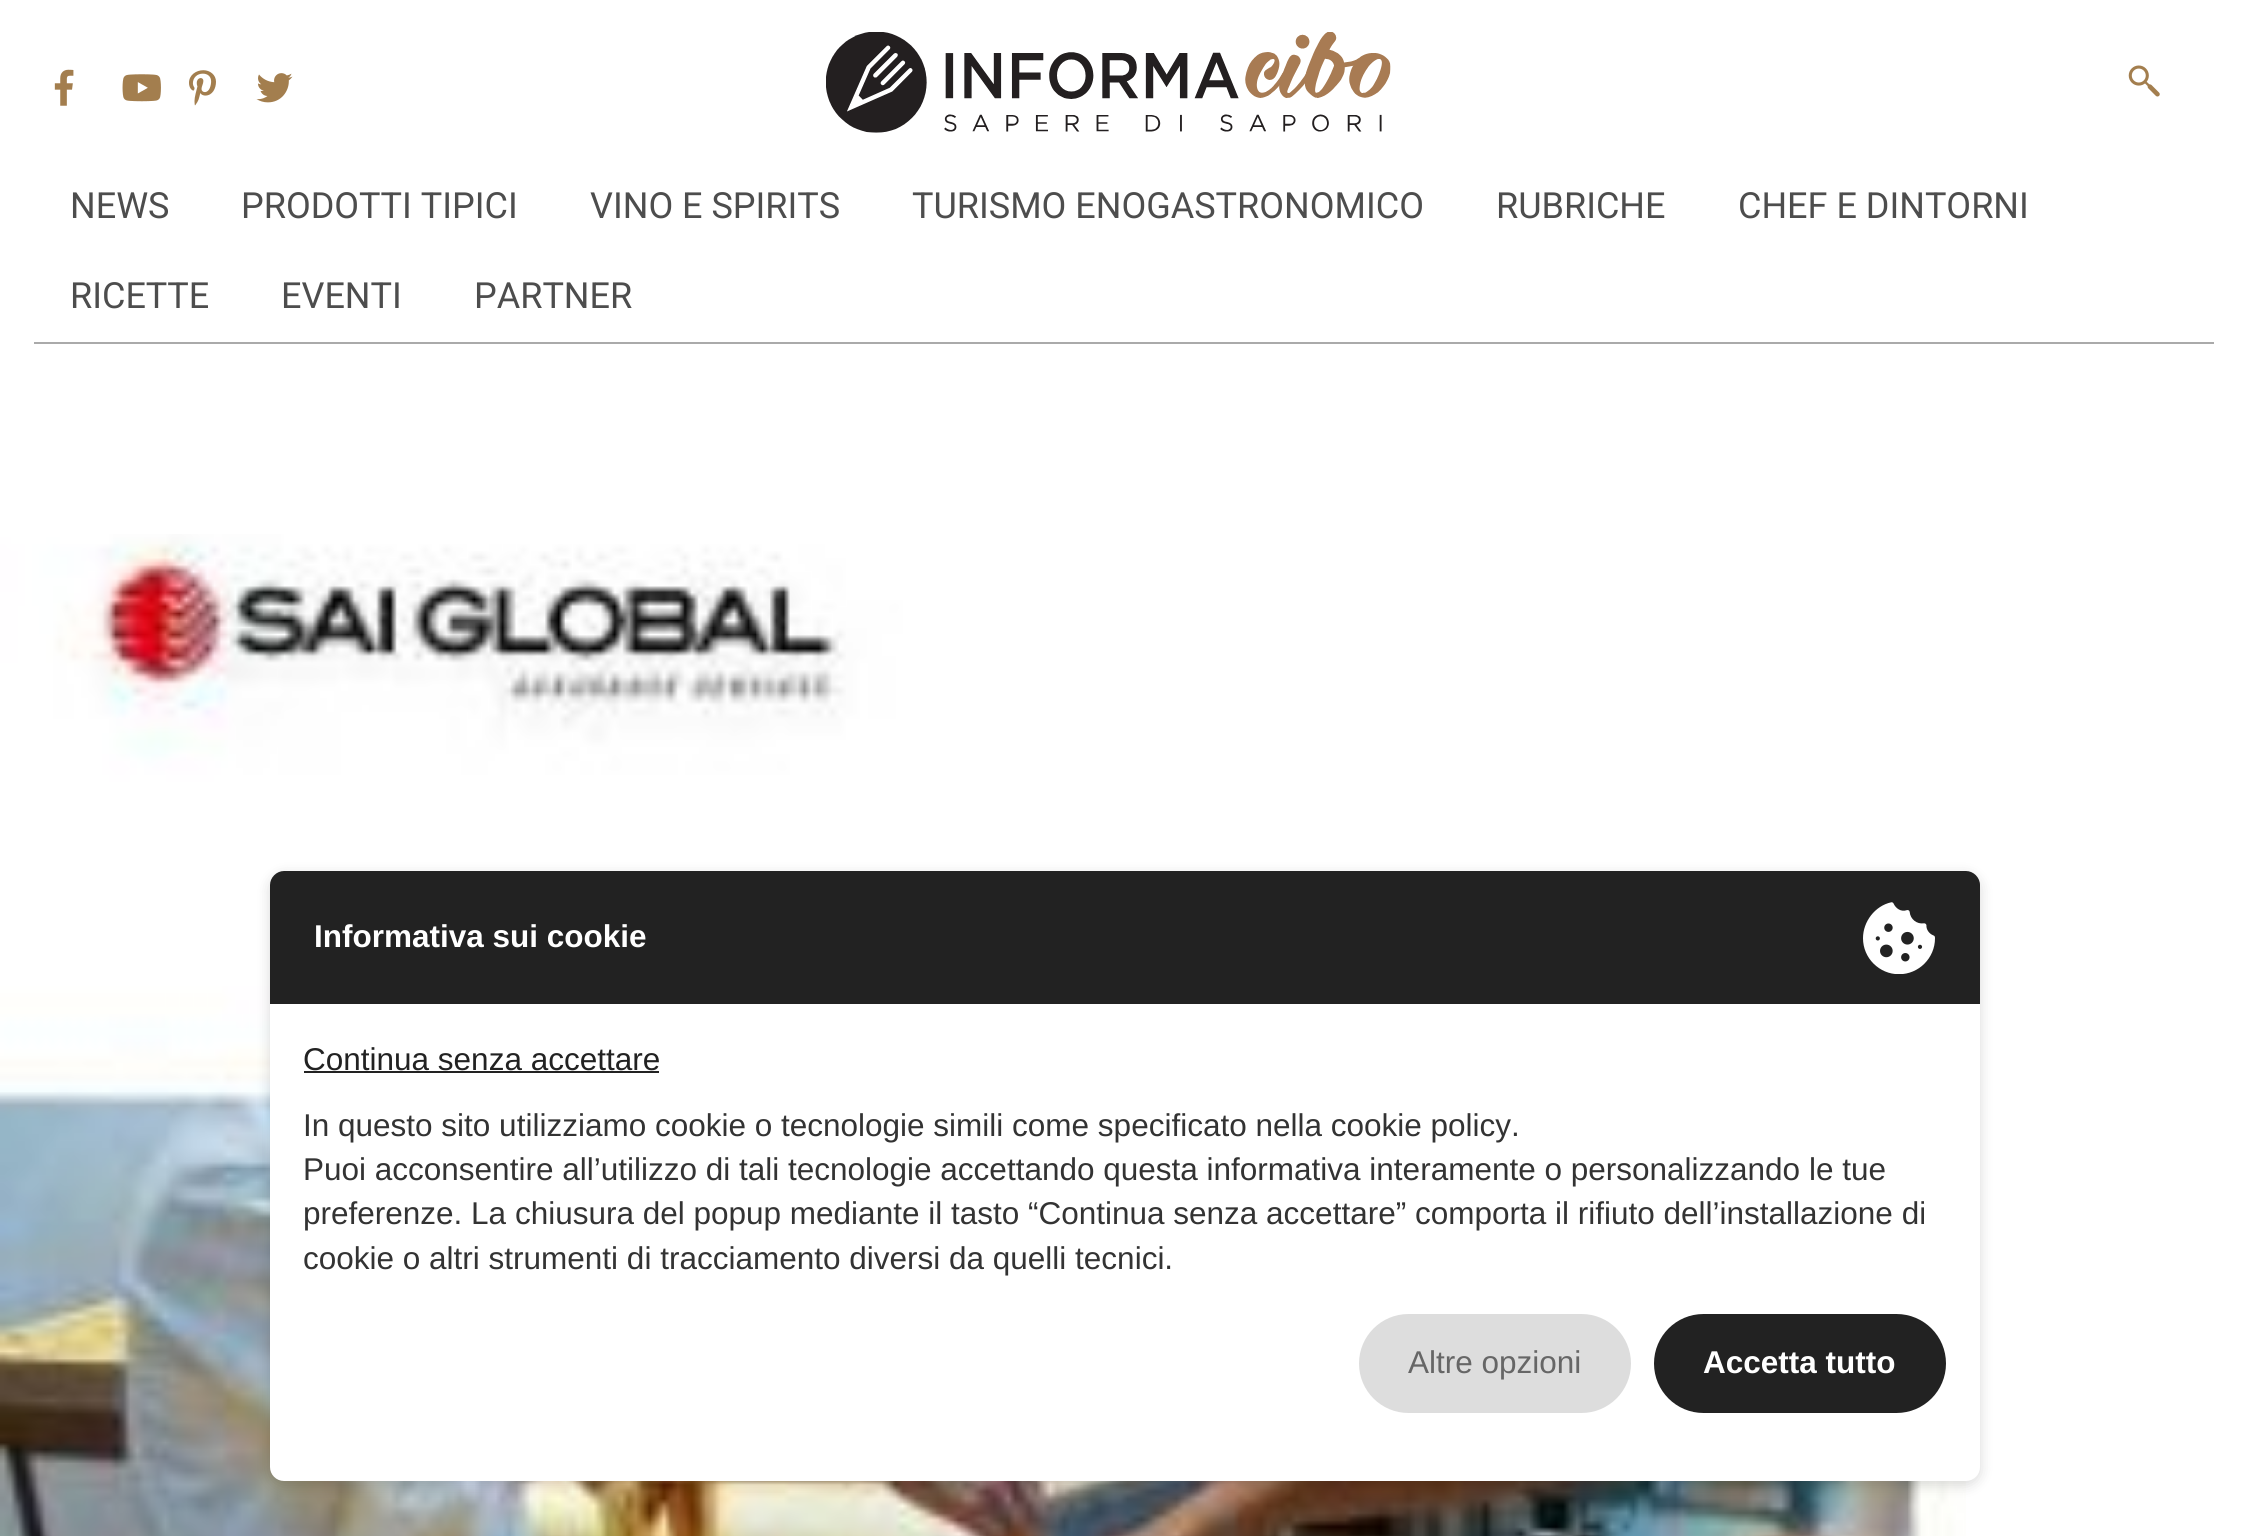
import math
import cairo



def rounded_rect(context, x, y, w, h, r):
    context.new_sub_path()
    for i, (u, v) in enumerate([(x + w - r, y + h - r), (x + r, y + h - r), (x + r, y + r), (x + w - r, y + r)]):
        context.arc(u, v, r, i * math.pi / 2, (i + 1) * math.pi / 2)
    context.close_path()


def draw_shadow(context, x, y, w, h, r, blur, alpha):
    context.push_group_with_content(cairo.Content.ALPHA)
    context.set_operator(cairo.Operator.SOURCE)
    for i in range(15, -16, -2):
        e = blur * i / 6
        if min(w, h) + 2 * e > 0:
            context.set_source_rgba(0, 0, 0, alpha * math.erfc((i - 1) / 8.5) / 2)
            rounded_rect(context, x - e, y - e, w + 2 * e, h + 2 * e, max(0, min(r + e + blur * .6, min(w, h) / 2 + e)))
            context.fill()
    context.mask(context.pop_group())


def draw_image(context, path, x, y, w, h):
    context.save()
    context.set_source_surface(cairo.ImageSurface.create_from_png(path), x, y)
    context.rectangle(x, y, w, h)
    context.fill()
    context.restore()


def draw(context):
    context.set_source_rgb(1, 1, 1)
    context.paint()
    draw_image(context, "images/1.png", 54, 69, 20, 37)
    draw_image(context, "images/2.png", 122, 74, 39, 28)
    draw_image(context, "images/3.png", 189, 70, 27, 36)
    draw_image(context, "images/4.png", 256, 73, 37, 30)
    draw_image(context, "images/5.png", 826, 32, 565, 101)
    draw_image(context, "images/6.png", 2128, 65, 32, 32)
    context.set_source_rgb(170 / 255, 170 / 255, 170 / 255)
    context.rectangle(34, 342, 2180, 2)
    context.fill()
    draw_image(context, "images/7.png", 0, 534, 1966, 1002)
    context.set_source_rgb(0, 0, 0)
    draw_shadow(context, 270, 875, 1710, 610, 14, 7, 0.15)
    context.set_source_rgb(1, 1, 1)
    rounded_rect(context, 270, 871, 1710, 610, 14)
    context.fill()
    context.set_source_rgb(34 / 255, 34 / 255, 34 / 255)
    context.new_path()
    context.move_to(284, 871)
    context.line_to(1966, 871)
    context.curve_to(1973.5, 871, 1980, 877.5, 1980, 885)
    context.line_to(1980, 1004)
    context.line_to(270, 1004)
    context.line_to(270, 885)
    context.curve_to(270, 877.5, 276.5, 871, 284, 871)
    context.close_path()
    context.fill()
    draw_image(context, "images/8.png", 1863, 902, 72, 72)
    context.rectangle(304, 1071, 355, 2)
    context.fill()
    context.set_source_rgb(221 / 255, 221 / 255, 221 / 255)
    rounded_rect(context, 1359, 1314, 272, 99, 49.5)
    context.fill()
    context.set_source_rgb(34 / 255, 34 / 255, 34 / 255)
    rounded_rect(context, 1654, 1314, 292, 99, 49.5)
    context.fill()
    context.select_font_face("Roboto")
    context.set_font_size(36)
    context.set_source_rgb(77 / 255, 77 / 255, 77 / 255)
    context.move_to(70, 218)
    context.show_text("NEWS")
    context.move_to(241, 218)
    context.show_text("PRODOTTI TIPICI")
    context.move_to(590, 218)
    context.show_text("VINO E SPIRITS")
    context.move_to(912, 218)
    context.show_text("TURISMO ENOGASTRONOMICO")
    context.move_to(1496, 218)
    context.show_text("RUBRICHE")
    context.move_to(1738, 218)
    context.show_text("CHEF E DINTORNI")
    context.move_to(70, 308)
    context.show_text("RICETTE")
    context.move_to(281, 308)
    context.show_text("EVENTI")
    context.move_to(474, 308)
    context.show_text("PARTNER")
    context.select_font_face("Liberation Sans", cairo.FontSlant.NORMAL, cairo.FontWeight.BOLD)
    context.set_font_size(31.5)
    context.set_source_rgb(1, 1, 1)
    context.move_to(314, 947)
    context.show_text("Informativa sui cookie")
    context.select_font_face("Liberation Sans")
    context.set_source_rgb(34 / 255, 34 / 255, 34 / 255)
    context.move_to(303, 1070)
    context.show_text("Continua senza accettare")
    context.set_source_rgb(51 / 255, 51 / 255, 51 / 255)
    context.move_to(303, 1136)
    context.show_text("In questo sito utilizziamo cookie o tecnologie simili come specificato nella cookie policy.")
    context.move_to(303, 1180)
    context.show_text("Puoi acconsentire all’utilizzo di tali tecnologie accettando questa informativa interamente o personalizzando le tue")
    context.move_to(303, 1224)
    context.show_text("preferenze. La chiusura del popup mediante il tasto “Continua senza accettare” comporta il rifiuto dell’installazione di")
    context.move_to(303, 1269)
    context.show_text("cookie o altri strumenti di tracciamento diversi da quelli tecnici.")
    context.set_source_rgb(102 / 255, 102 / 255, 102 / 255)
    context.move_to(1408, 1373)
    context.show_text("Altre opzioni")
    context.select_font_face("Liberation Sans", cairo.FontSlant.NORMAL, cairo.FontWeight.BOLD)
    context.set_source_rgb(1, 1, 1)
    context.move_to(1703, 1373)
    context.show_text("Accetta tutto")


surface = cairo.ImageSurface(cairo.Format.RGB24, 2246, 1536)
context = cairo.Context(surface)
options = cairo.FontOptions()
options.set_hint_metrics(cairo.HintMetrics.OFF)
options.set_hint_style(cairo.HintStyle.NONE)
context.set_font_options(options)
context.set_miter_limit(4)
draw(context)
surface.write_to_png("out.png")
